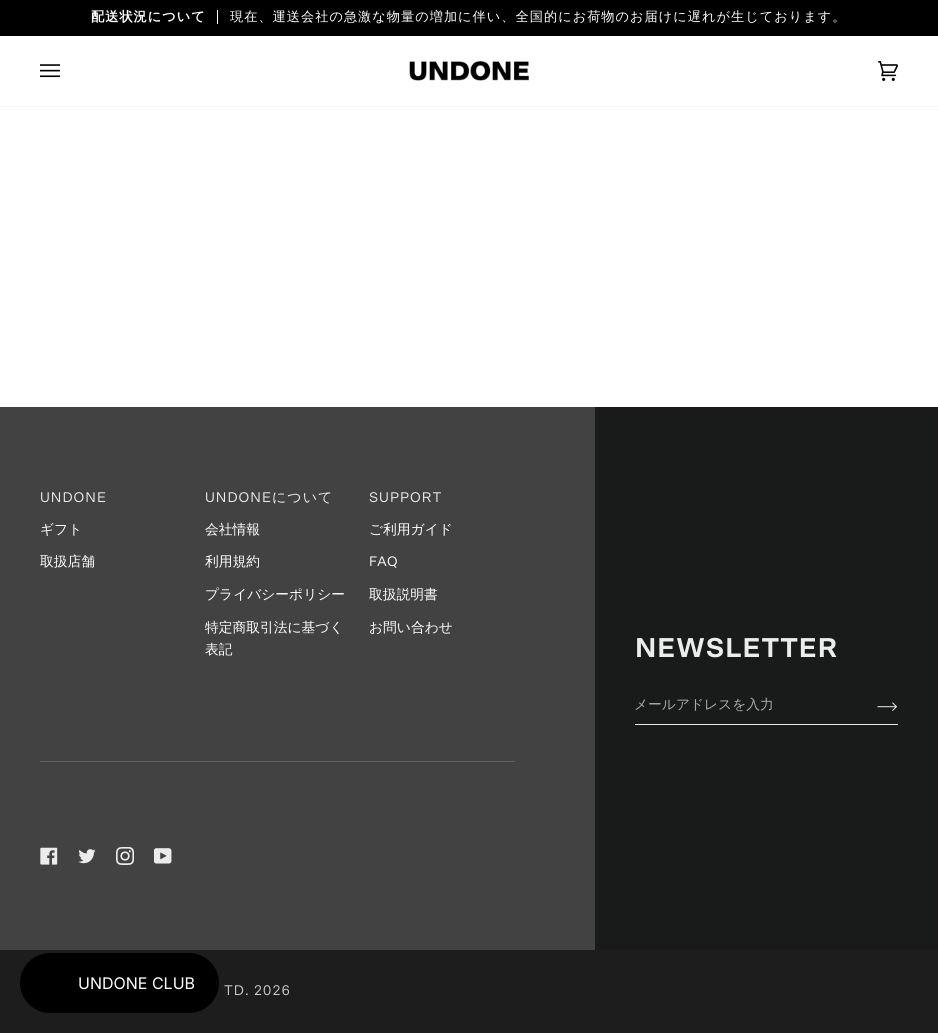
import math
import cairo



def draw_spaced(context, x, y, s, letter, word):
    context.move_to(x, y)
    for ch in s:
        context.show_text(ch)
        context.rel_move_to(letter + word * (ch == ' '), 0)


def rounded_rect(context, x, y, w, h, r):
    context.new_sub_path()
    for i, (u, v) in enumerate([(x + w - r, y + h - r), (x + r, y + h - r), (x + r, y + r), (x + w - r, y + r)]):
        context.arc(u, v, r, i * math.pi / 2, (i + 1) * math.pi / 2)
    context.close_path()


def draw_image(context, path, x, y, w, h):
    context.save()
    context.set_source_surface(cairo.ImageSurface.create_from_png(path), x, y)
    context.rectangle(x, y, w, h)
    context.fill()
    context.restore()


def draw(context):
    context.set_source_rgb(1, 1, 1)
    context.paint()
    context.set_source_rgb(0, 0, 0)
    context.rectangle(0, 0, 938, 36)
    context.fill()
    context.set_source_rgb(1, 1, 1)
    context.rectangle(217, 10, 1, 14)
    context.fill()
    context.set_source_rgb(247 / 255, 245 / 255, 244 / 255)
    context.rectangle(0, 106, 938, 1)
    context.fill()
    draw_image(context, "images/1.png", 40, 64, 20, 14)
    draw_image(context, "images/2.png", 409, 61, 120, 20)
    draw_image(context, "images/3.png", 878, 61, 20, 20)
    context.set_source_rgb(66 / 255, 66 / 255, 66 / 255)
    context.rectangle(0, 407, 595, 543)
    context.fill()
    context.set_source_rgb(94 / 255, 94 / 255, 94 / 255)
    context.rectangle(40, 761, 475, 1)
    context.fill()
    draw_image(context, "images/4.png", 40, 847, 18, 18)
    draw_image(context, "images/5.png", 78, 849, 18, 15)
    draw_image(context, "images/6.png", 116, 847, 18, 18)
    draw_image(context, "images/7.png", 154, 848, 18, 16)
    context.set_source_rgb(24 / 255, 27 / 255, 26 / 255)
    context.rectangle(595, 407, 343, 543)
    context.fill()
    context.set_source_rgb(232 / 255, 232 / 255, 232 / 255)
    context.rectangle(635, 724, 263, 1)
    context.fill()
    draw_image(context, "images/8.png", 877, 702, 21, 9)
    context.set_source_rgb(29 / 255, 29 / 255, 29 / 255)
    context.rectangle(0, 950, 938, 83)
    context.fill()
    context.set_source_rgb(0, 0, 0)
    rounded_rect(context, 20, 953, 199, 60, 30)
    context.fill()
    context.select_font_face("WenQuanYi Zen Hei", cairo.FontSlant.NORMAL, cairo.FontWeight.BOLD)
    context.set_font_size(13.2)
    context.set_source_rgb(1, 1, 1)
    draw_spaced(context, 91, 21, "配送状況について", 1, 0)
    context.select_font_face("WenQuanYi Zen Hei Medium")
    draw_spaced(context, 230, 21, "現在、運送会社の急激な物量の増加に伴い、全国的にお荷物のお届けに遅れが生じております。", 1, 0)
    context.select_font_face("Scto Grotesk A")
    context.set_font_size(14)
    context.set_source_rgb(236 / 255, 236 / 255, 236 / 255)
    draw_spaced(context, 40, 502, "UNDONE", 1, 0)
    context.select_font_face("WenQuanYi Zen Hei Medium")
    context.set_font_size(13.75)
    context.set_source_rgb(1, 1, 1)
    context.move_to(40, 534)
    context.show_text("ギフト")
    context.move_to(40, 566)
    context.show_text("取扱店舗")
    context.select_font_face("Scto Grotesk A")
    context.set_font_size(14)
    context.set_source_rgb(236 / 255, 236 / 255, 236 / 255)
    draw_spaced(context, 205, 502, "UNDONE", 1, 0)
    context.select_font_face("WenQuanYi Zen Hei Medium")
    draw_spaced(context, 272, 502, "について", 1, 0)
    context.set_font_size(13.75)
    context.set_source_rgb(1, 1, 1)
    context.move_to(205, 534)
    context.show_text("会社情報")
    context.move_to(205, 566)
    context.show_text("利用規約")
    context.move_to(205, 599)
    context.show_text("プライバシーポリシー")
    context.move_to(205, 632)
    context.show_text("特定商取引法に基づく")
    context.move_to(205, 654)
    context.show_text("表記")
    context.select_font_face("Scto Grotesk A")
    context.set_font_size(14)
    context.set_source_rgb(236 / 255, 236 / 255, 236 / 255)
    draw_spaced(context, 369, 502, "SUPPORT", 1, 0)
    context.select_font_face("WenQuanYi Zen Hei Medium")
    context.set_font_size(13.75)
    context.set_source_rgb(1, 1, 1)
    context.move_to(369, 534)
    context.show_text("ご利用ガイド")
    context.select_font_face("Scto Grotesk A")
    context.move_to(369, 566)
    context.show_text("FAQ")
    context.select_font_face("WenQuanYi Zen Hei Medium")
    context.move_to(369, 599)
    context.show_text("取扱説明書")
    context.move_to(369, 632)
    context.show_text("お問い合わせ")
    context.select_font_face("Scto Grotesk A", cairo.FontSlant.NORMAL, cairo.FontWeight.BOLD)
    context.set_font_size(27.25)
    context.set_source_rgb(236 / 255, 236 / 255, 236 / 255)
    draw_spaced(context, 635, 657, "NEWSLETTER", 1, 0)
    context.select_font_face("WenQuanYi Zen Hei Medium")
    context.set_font_size(13.75)
    context.set_source_rgb(170 / 255, 171 / 255, 170 / 255)
    context.move_to(634, 709)
    context.show_text("メールアドレスを入力")
    context.select_font_face("Scto Grotesk A")
    context.set_font_size(14)
    context.set_source_rgb(204 / 255, 204 / 255, 204 / 255)
    draw_spaced(context, 224, 995, "TD. 2026", 1, 0)
    context.select_font_face("Inter")
    context.set_font_size(16)
    context.set_source_rgb(1, 1, 1)
    context.move_to(78, 989)
    context.show_text("UNDONE CLUB")


surface = cairo.ImageSurface(cairo.Format.RGB24, 938, 1033)
context = cairo.Context(surface)
options = cairo.FontOptions()
options.set_hint_metrics(cairo.HintMetrics.OFF)
options.set_hint_style(cairo.HintStyle.NONE)
context.set_font_options(options)
context.set_miter_limit(4)
draw(context)
surface.write_to_png("out.png")
